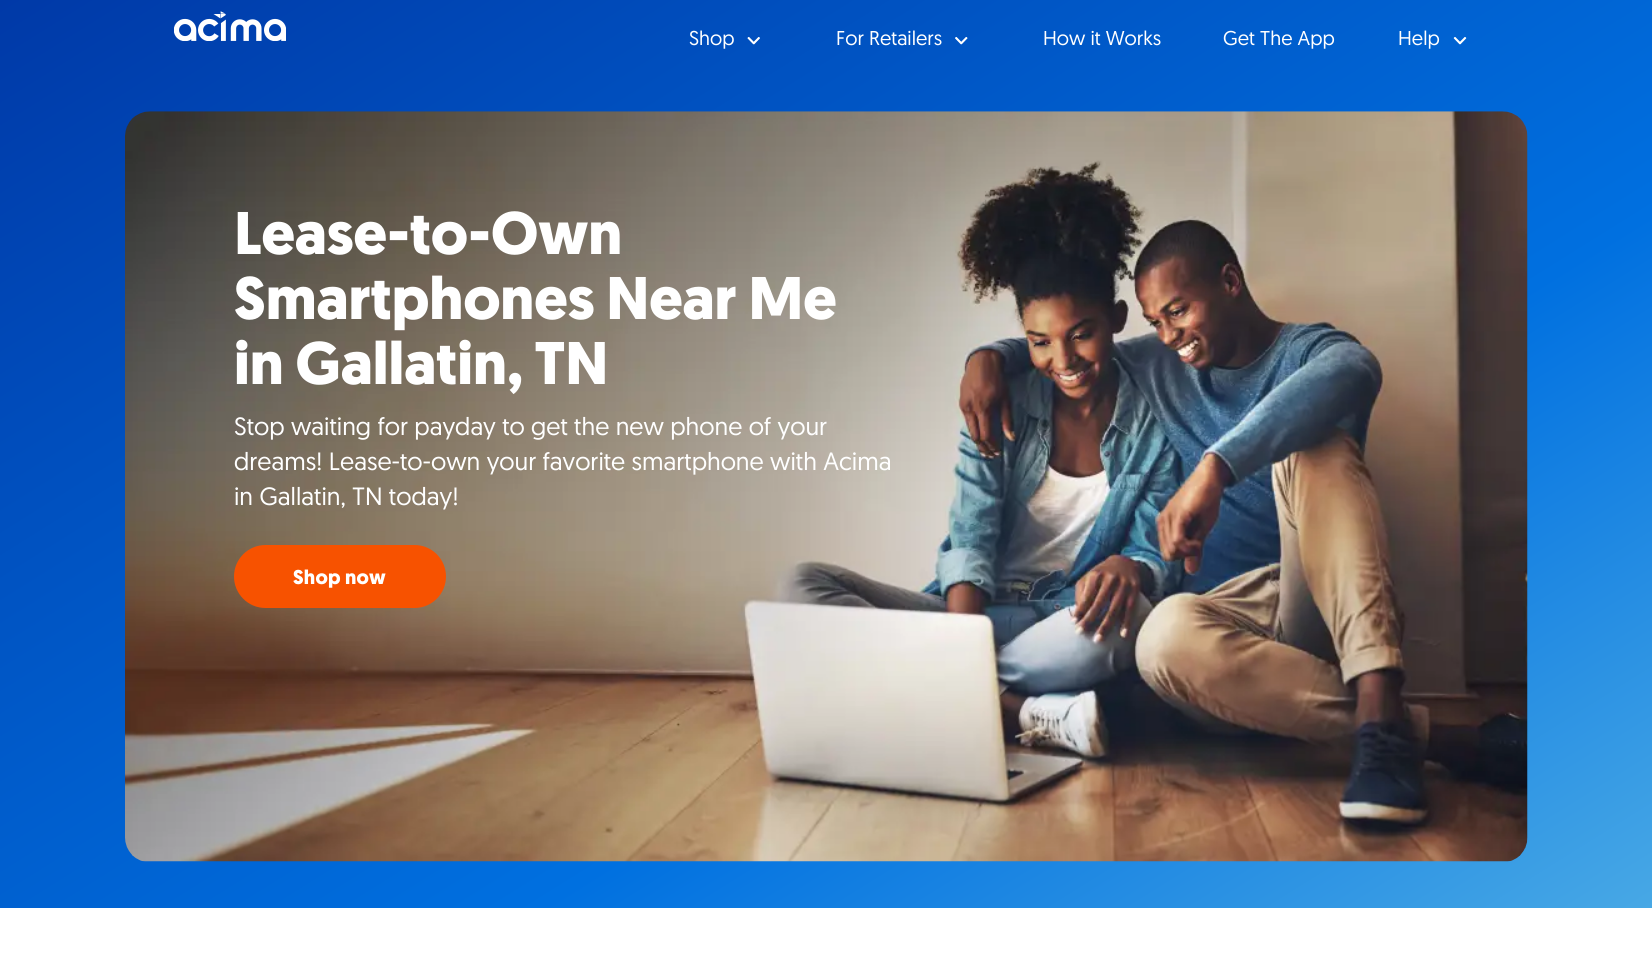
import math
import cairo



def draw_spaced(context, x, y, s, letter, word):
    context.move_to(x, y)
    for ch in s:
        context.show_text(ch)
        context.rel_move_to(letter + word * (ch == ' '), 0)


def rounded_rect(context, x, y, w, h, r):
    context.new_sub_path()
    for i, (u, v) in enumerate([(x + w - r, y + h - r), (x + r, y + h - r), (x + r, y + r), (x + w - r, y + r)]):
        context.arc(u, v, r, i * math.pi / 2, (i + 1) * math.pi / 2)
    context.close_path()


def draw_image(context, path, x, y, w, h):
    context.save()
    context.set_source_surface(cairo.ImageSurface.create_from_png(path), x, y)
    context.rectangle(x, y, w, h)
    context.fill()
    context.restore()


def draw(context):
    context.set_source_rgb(1, 1, 1)
    context.paint()
    gradient = cairo.LinearGradient(340, -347, 1428, 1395)
    gradient.add_color_stop_rgba(0, 0, 51 / 255, 161 / 255, 1)
    gradient.add_color_stop_rgba(0.57, 0, 112 / 255, 224 / 255, 1)
    gradient.add_color_stop_rgba(1, 107 / 255, 196 / 255, 232 / 255, 1)
    context.set_source(gradient)
    context.rectangle(0, 0, 1652, 908)
    context.fill()
    draw_image(context, "images/1.png", 174, 11, 112, 30)
    draw_image(context, "images/2.png", 747, 37, 13, 8)
    draw_image(context, "images/3.png", 955, 37, 13, 8)
    draw_image(context, "images/4.png", 1453, 37, 14, 8)
    draw_image(context, "images/5.png", 125, 111, 1403, 751)
    context.set_source_rgb(247 / 255, 82 / 255, 0)
    rounded_rect(context, 234, 545, 212, 63, 31.5)
    context.fill()
    context.select_font_face("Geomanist")
    context.set_font_size(20)
    context.set_source_rgb(1, 1, 1)
    context.move_to(689, 45)
    context.show_text("Shop")
    context.move_to(836, 45)
    context.show_text("For Retailers")
    context.move_to(1043, 45)
    context.show_text("How it Works")
    context.move_to(1223, 45)
    context.show_text("Get The App")
    context.move_to(1398, 45)
    context.show_text("Help")
    context.select_font_face("Geomanist", cairo.FontSlant.NORMAL, cairo.FontWeight.BOLD)
    context.set_font_size(60)
    context.move_to(234, 254)
    context.show_text("Lease-to-Own")
    context.move_to(234, 319)
    context.show_text("Smartphones Near Me")
    context.move_to(234, 384)
    context.show_text("in Gallatin, TN")
    context.select_font_face("Geomanist")
    context.set_font_size(25)
    context.move_to(234, 435)
    context.show_text("Stop waiting for payday to get the new phone of your")
    context.move_to(234, 470)
    context.show_text("dreams! Lease-to-own your favorite smartphone with Acima")
    context.move_to(234, 505)
    context.show_text("in Gallatin, TN today!")
    context.select_font_face("Geomanist", cairo.FontSlant.NORMAL, cairo.FontWeight.BOLD)
    context.set_font_size(20)
    draw_spaced(context, 293, 584, "Shop now", 0.25, 0)


surface = cairo.ImageSurface(cairo.Format.RGB24, 1652, 976)
context = cairo.Context(surface)
options = cairo.FontOptions()
options.set_hint_metrics(cairo.HintMetrics.OFF)
options.set_hint_style(cairo.HintStyle.NONE)
context.set_font_options(options)
context.set_miter_limit(4)
draw(context)
surface.write_to_png("out.png")
